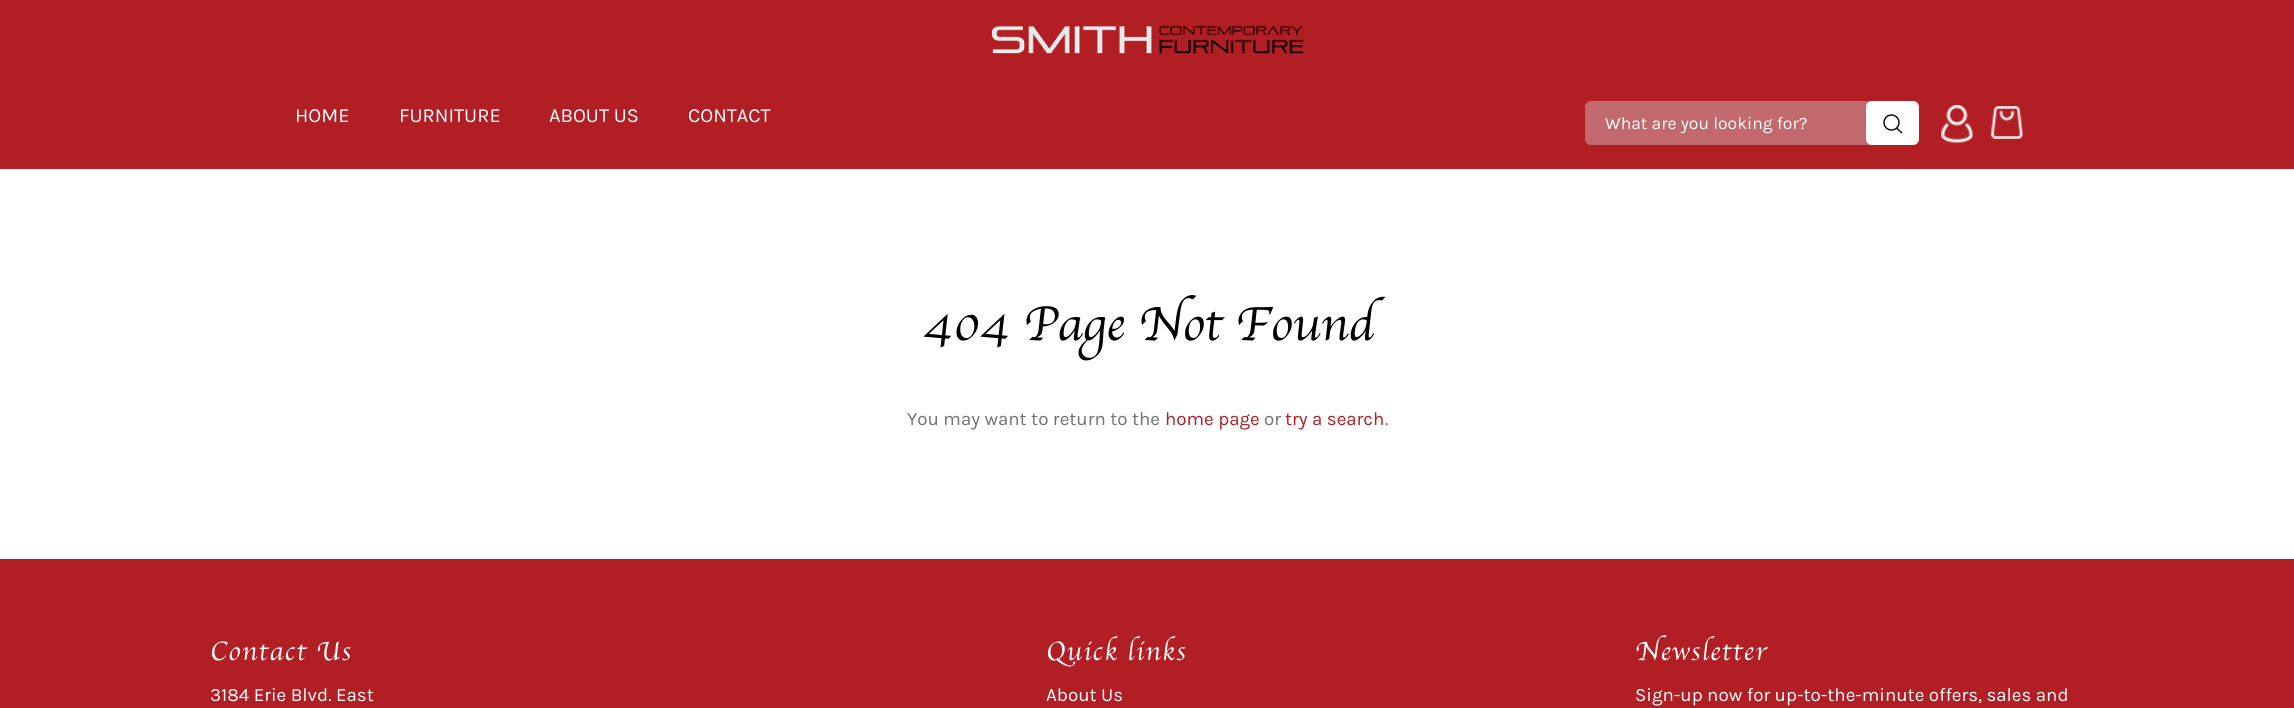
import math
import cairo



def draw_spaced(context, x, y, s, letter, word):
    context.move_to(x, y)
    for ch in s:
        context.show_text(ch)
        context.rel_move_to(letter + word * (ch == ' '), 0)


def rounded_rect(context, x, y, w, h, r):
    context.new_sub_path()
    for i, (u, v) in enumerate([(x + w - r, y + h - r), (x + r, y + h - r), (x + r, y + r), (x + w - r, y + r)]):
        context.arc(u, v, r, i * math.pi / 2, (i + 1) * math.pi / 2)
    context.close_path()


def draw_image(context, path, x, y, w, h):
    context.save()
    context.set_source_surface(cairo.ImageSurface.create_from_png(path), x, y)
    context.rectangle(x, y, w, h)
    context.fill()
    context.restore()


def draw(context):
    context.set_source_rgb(1, 1, 1)
    context.paint()
    context.set_source_rgb(177 / 255, 30 / 255, 35 / 255)
    context.rectangle(0, 0, 2294, 169)
    context.fill()
    draw_image(context, "images/1.png", 991, 25, 313, 29)
    context.set_source_rgb(193 / 255, 105 / 255, 108 / 255)
    context.new_path()
    context.move_to(1591, 101.5)
    context.line_to(1872.5, 101.5)
    context.line_to(1872.5, 144.5)
    context.line_to(1591, 144.5)
    context.curve_to(1588, 144.5, 1585.5, 142, 1585.5, 139)
    context.line_to(1585.5, 107)
    context.curve_to(1585.5, 104, 1588, 101.5, 1591, 101.5)
    context.close_path()
    context.fill_preserve()
    context.set_line_width(1)
    context.stroke()
    context.set_source_rgb(1, 1, 1)
    rounded_rect(context, 1866, 101, 53, 44, 6)
    context.fill()
    context.arc(1891.5, 122.5, 7.5, 0, 2 * math.pi)
    context.set_source_rgb(0, 0, 0)
    context.set_line_width(1.4)
    context.stroke()
    context.new_path()
    context.move_to(1897, 128.5)
    context.line_to(1901.5, 132.5)
    context.set_line_cap(cairo.LineCap.SQUARE)
    context.stroke()
    draw_image(context, "images/2.png", 1941, 105, 32, 38)
    draw_image(context, "images/3.png", 1991, 106, 32, 33)
    context.set_source_rgb(177 / 255, 30 / 255, 35 / 255)
    context.rectangle(0, 559, 2294, 149)
    context.fill()
    context.select_font_face("Karla")
    context.set_font_size(20)
    context.set_source_rgb(1, 1, 1)
    context.move_to(295, 122)
    context.show_text("HOME")
    context.move_to(399, 122)
    context.show_text("FURNITURE")
    context.move_to(549, 122)
    context.show_text("ABOUT US")
    context.move_to(688, 122)
    context.show_text("CONTACT")
    context.set_font_size(17.5)
    context.move_to(1605, 129)
    context.show_text("What are you looking for?")
    context.select_font_face("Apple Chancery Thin")
    context.set_font_size(50)
    context.set_source_rgb(0, 0, 0)
    context.move_to(922, 340)
    context.show_text("404 Page Not Found")
    context.select_font_face("Karla")
    context.set_font_size(18.75)
    context.set_source_rgb(112 / 255, 113 / 255, 115 / 255)
    context.move_to(907, 425)
    context.show_text("You may want to return to the")
    context.set_source_rgb(177 / 255, 30 / 255, 35 / 255)
    context.move_to(1165, 425)
    context.show_text("home page")
    context.set_source_rgb(112 / 255, 113 / 255, 115 / 255)
    context.move_to(1264, 425)
    context.show_text("or")
    context.set_source_rgb(177 / 255, 30 / 255, 35 / 255)
    context.move_to(1285, 425)
    context.show_text("try a search")
    context.set_source_rgb(112 / 255, 113 / 255, 115 / 255)
    context.move_to(1385, 425)
    context.show_text(".")
    context.select_font_face("Apple Chancery Thin")
    context.set_font_size(27.5)
    context.set_source_rgb(1, 1, 1)
    draw_spaced(context, 210, 660, "Contact Us", 1.25, 0)
    context.select_font_face("Karla")
    context.set_font_size(18.75)
    context.move_to(210, 701)
    context.show_text("3184 Erie Blvd. East")
    context.select_font_face("Apple Chancery Thin")
    context.set_font_size(27.5)
    draw_spaced(context, 1046, 660, "Quick links", 1.25, 0)
    context.select_font_face("Karla")
    context.set_font_size(18.75)
    context.move_to(1046, 701)
    context.show_text("About Us")
    context.select_font_face("Apple Chancery Thin")
    context.set_font_size(27.5)
    draw_spaced(context, 1635, 660, "Newsletter", 1.25, 0)
    context.select_font_face("Karla")
    context.set_font_size(18.75)
    context.move_to(1635, 701)
    context.show_text("Sign-up now for up-to-the-minute offers, sales and")


surface = cairo.ImageSurface(cairo.Format.RGB24, 2294, 708)
context = cairo.Context(surface)
options = cairo.FontOptions()
options.set_hint_metrics(cairo.HintMetrics.OFF)
options.set_hint_style(cairo.HintStyle.NONE)
context.set_font_options(options)
context.set_miter_limit(4)
draw(context)
surface.write_to_png("out.png")
